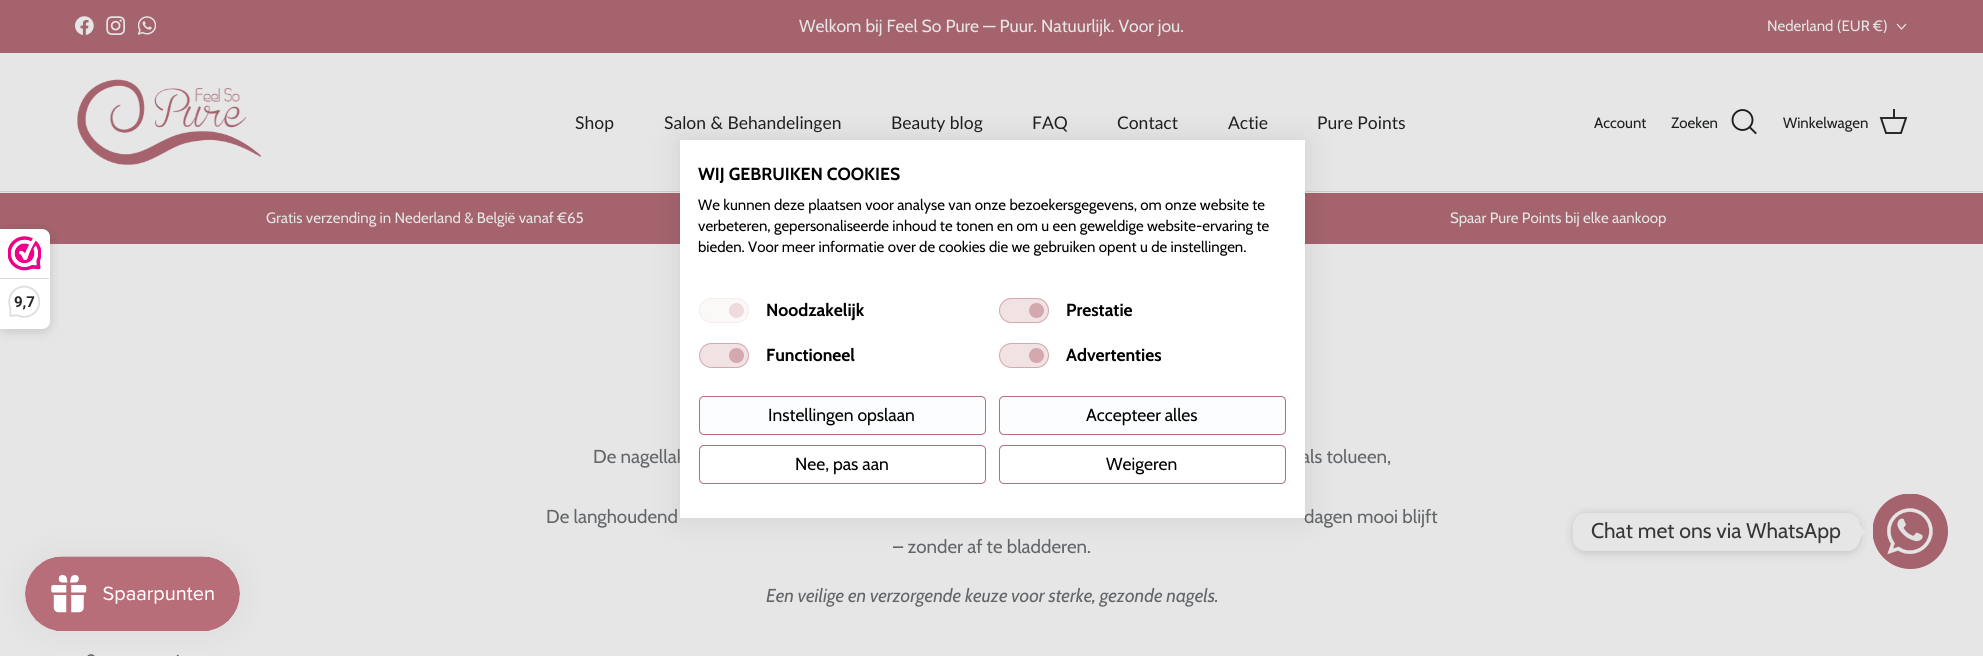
import math
import cairo



def rounded_rect(context, x, y, w, h, r):
    context.new_sub_path()
    for i, (u, v) in enumerate([(x + w - r, y + h - r), (x + r, y + h - r), (x + r, y + r), (x + w - r, y + r)]):
        context.arc(u, v, r, i * math.pi / 2, (i + 1) * math.pi / 2)
    context.close_path()


def draw_shadow(context, x, y, w, h, r, blur, alpha):
    context.push_group_with_content(cairo.Content.ALPHA)
    context.set_operator(cairo.Operator.SOURCE)
    for i in range(15, -16, -2):
        e = blur * i / 6
        if min(w, h) + 2 * e > 0:
            context.set_source_rgba(0, 0, 0, alpha * math.erfc((i - 1) / 8.5) / 2)
            rounded_rect(context, x - e, y - e, w + 2 * e, h + 2 * e, max(0, min(r + e + blur * .6, min(w, h) / 2 + e)))
            context.fill()
    context.mask(context.pop_group())


def draw_image(context, path, x, y, w, h):
    context.save()
    context.set_source_surface(cairo.ImageSurface.create_from_png(path), x, y)
    context.rectangle(x, y, w, h)
    context.fill()
    context.restore()


def draw(context):
    context.set_source_rgb(230 / 255, 230 / 255, 230 / 255)
    context.paint()
    context.set_source_rgb(165 / 255, 99 / 255, 109 / 255)
    context.rectangle(0, 0, 1983, 53)
    context.fill()
    draw_image(context, "images/1.png", 75, 16, 19, 19)
    draw_image(context, "images/2.png", 106, 16, 19, 19)
    draw_image(context, "images/3.png", 138, 16, 18, 19)
    context.new_path()
    context.move_to(1906, 24)
    context.line_to(1901.5, 29)
    context.line_to(1897, 24)
    context.set_source_rgb(230 / 255, 230 / 255, 230 / 255)
    context.set_line_width(1.2)
    context.stroke()
    context.set_source_rgb(203 / 255, 203 / 255, 203 / 255)
    context.rectangle(0, 191, 1983, 1)
    context.fill()
    draw_image(context, "images/4.png", 77, 79, 185, 86)
    context.arc(1742.5, 120, 10, 0, 2 * math.pi)
    context.set_source_rgb(29 / 255, 31 / 255, 32 / 255)
    context.set_line_width(1.9)
    context.stroke()
    context.new_path()
    context.move_to(1750, 127.5)
    context.line_to(1755.5, 133)
    context.set_line_cap(cairo.LineCap.SQUARE)
    context.stroke()
    context.new_path()
    context.move_to(1881, 118)
    context.line_to(1906, 118)
    context.line_to(1901, 133)
    context.line_to(1886, 133)
    context.close_path()
    context.set_line_cap(cairo.LineCap.BUTT)
    context.stroke()
    context.set_source_rgba(29 / 255, 31 / 255, 32 / 255, 0.95)
    context.rectangle(1893, 109, 2, 9)
    context.fill()
    context.set_source_rgb(165 / 255, 99 / 255, 109 / 255)
    context.rectangle(0, 193, 1983, 51)
    context.fill()
    context.set_source_rgb(0, 0, 0)
    draw_shadow(context, 680, 140, 625, 378, 0, 15, 0.1)
    draw_shadow(context, 0, 231, 50, 100, 8, 6, 0.15)
    context.set_source_rgb(1, 1, 1)
    context.new_path()
    context.move_to(0, 229)
    context.line_to(42, 229)
    context.curve_to(46.5, 229, 50, 232.5, 50, 237)
    context.line_to(50, 321)
    context.curve_to(50, 325.5, 46.5, 329, 42, 329)
    context.line_to(0, 329)
    context.close_path()
    context.fill()
    draw_image(context, "images/5.png", 8, 236, 33, 35)
    context.set_source_rgb(217 / 255, 217 / 255, 217 / 255)
    context.rectangle(0, 278, 49, 1)
    context.fill()
    draw_image(context, "images/6.png", 8, 285, 32, 33)
    draw_image(context, "images/8.png", 87, 654, 8, 2)
    context.new_path()
    context.move_to(178, 655.5)
    context.line_to(170.5, 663)
    context.line_to(178, 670.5)
    context.set_source_rgb(98 / 255, 102 / 255, 105 / 255)
    context.set_line_width(1.6)
    context.set_line_cap(cairo.LineCap.ROUND)
    context.set_line_join(cairo.LineJoin.ROUND)
    context.stroke()
    context.set_source_rgb(0, 0, 0)
    draw_shadow(context, 25, 556, 215, 75, 37.5, 15.5, 0.05)
    draw_image(context, "images/7.png", 25, 556, 215, 75)
    context.set_source_rgb(165 / 255, 99 / 255, 109 / 255)
    context.arc(1910.5, 531.5, 37.5, 0, 2 * math.pi)
    context.fill()
    draw_image(context, "images/9.png", 1873, 494, 75, 75)
    context.set_source_rgb(0, 0, 0)
    draw_shadow(context, 1573, 514, 287, 39, 13, 5, 0.15)
    context.set_source_rgb(230 / 255, 230 / 255, 230 / 255)
    rounded_rect(context, 1573, 513, 287, 38, 13)
    context.fill()
    context.new_path()
    context.move_to(1860, 538)
    context.line_to(1860, 525.5)
    context.line_to(1866, 532)
    context.close_path()
    context.fill()
    context.select_font_face("Cabin")
    context.set_font_size(17.5)
    context.move_to(799, 32)
    context.show_text("Welkom bij Feel So Pure — Puur. Natuurlijk. Voor jou.")
    context.set_font_size(15)
    context.move_to(1767, 31)
    context.show_text("Nederland (EUR €)")
    context.select_font_face("Lato")
    context.set_font_size(17.5)
    context.set_source_rgb(29 / 255, 31 / 255, 32 / 255)
    context.move_to(575, 129)
    context.show_text("Shop")
    context.move_to(664, 129)
    context.show_text("Salon & Behandelingen")
    context.move_to(891, 129)
    context.show_text("Beauty blog")
    context.move_to(1032, 129)
    context.show_text("FAQ")
    context.move_to(1117, 129)
    context.show_text("Contact")
    context.move_to(1228, 129)
    context.show_text("Actie")
    context.move_to(1317, 129)
    context.show_text("Pure Points")
    context.select_font_face("Cabin")
    context.set_font_size(15)
    context.move_to(1594, 128)
    context.show_text("Account")
    context.move_to(1671, 128)
    context.show_text("Zoeken")
    context.move_to(1783, 128)
    context.show_text("Winkelwagen")
    context.set_source_rgb(230 / 255, 230 / 255, 230 / 255)
    context.move_to(266, 223)
    context.show_text("Gratis verzending in Nederland & België vanaf €65")
    context.move_to(1450, 223)
    context.show_text("Spaar Pure Points bij elke aankoop")
    context.select_font_face("Roboto", cairo.FontSlant.NORMAL, cairo.FontWeight.BOLD)
    context.set_source_rgb(39 / 255, 38 / 255, 38 / 255)
    context.move_to(14, 307)
    context.show_text("9,7")
    context.select_font_face("Cabin")
    context.set_font_size(18.75)
    context.set_source_rgb(98 / 255, 102 / 255, 105 / 255)
    context.move_to(593, 463)
    context.show_text("De nagellak")
    context.move_to(1301, 463)
    context.show_text("als tolueen,")
    context.move_to(546, 523)
    context.show_text("De langhoudend")
    context.move_to(1304, 523)
    context.show_text("dagen mooi blijft")
    context.set_source_rgb(1, 1, 1)
    context.rectangle(680, 140, 625, 378)
    context.fill()
    rounded_rect(context, 999.5, 445.5, 286, 38, 4.5)
    context.set_source_rgb(183 / 255, 110 / 255, 121 / 255)
    context.set_line_width(1)
    context.set_line_cap(cairo.LineCap.BUTT)
    context.set_line_join(cairo.LineJoin.MITER)
    context.stroke()
    context.set_font_size(17.5)
    context.set_source_rgb(0, 0, 0)
    context.move_to(1106, 470)
    context.show_text("Weigeren")
    rounded_rect(context, 699.5, 445.5, 286, 38, 4.5)
    context.set_source_rgb(183 / 255, 110 / 255, 121 / 255)
    context.stroke()
    context.set_source_rgb(0, 0, 0)
    context.move_to(795, 470)
    context.show_text("Nee, pas aan")
    context.set_source_rgb(252 / 255, 253 / 255, 254 / 255)
    rounded_rect(context, 999.5, 396.5, 286, 38, 4.5)
    context.fill_preserve()
    context.set_source_rgb(183 / 255, 110 / 255, 121 / 255)
    context.stroke()
    context.set_source_rgb(0, 0, 0)
    context.move_to(1086, 421)
    context.show_text("Accepteer alles")
    context.set_source_rgb(252 / 255, 253 / 255, 254 / 255)
    rounded_rect(context, 699.5, 396.5, 286, 38, 4.5)
    context.fill_preserve()
    context.set_source_rgb(183 / 255, 110 / 255, 121 / 255)
    context.stroke()
    context.set_source_rgb(0, 0, 0)
    context.move_to(768, 421)
    context.show_text("Instellingen opslaan")
    context.set_source_rgb(241 / 255, 226 / 255, 228 / 255)
    rounded_rect(context, 999, 343, 50, 25, 12.5)
    context.fill()
    context.set_source_rgb(212 / 255, 168 / 255, 175 / 255)
    context.arc(1036.5, 355.5, 7.5, 0, 2 * math.pi)
    context.fill()
    rounded_rect(context, 999.5, 343.5, 49, 24, 12)
    context.set_source_rgba(183 / 255, 110 / 255, 121 / 255, 0.5)
    context.stroke()
    context.select_font_face("Cabin", cairo.FontSlant.NORMAL, cairo.FontWeight.BOLD)
    context.set_source_rgb(0, 0, 0)
    context.move_to(1066, 361)
    context.show_text("Advertenties")
    context.set_source_rgb(241 / 255, 226 / 255, 228 / 255)
    rounded_rect(context, 699, 343, 50, 25, 12.5)
    context.fill()
    context.set_source_rgb(212 / 255, 168 / 255, 175 / 255)
    context.arc(736.5, 355.5, 7.5, 0, 2 * math.pi)
    context.fill()
    rounded_rect(context, 699.5, 343.5, 49, 24, 12)
    context.set_source_rgba(183 / 255, 110 / 255, 121 / 255, 0.5)
    context.stroke()
    context.set_source_rgb(0, 0, 0)
    context.move_to(766, 361)
    context.show_text("Functioneel")
    context.set_source_rgb(241 / 255, 226 / 255, 228 / 255)
    rounded_rect(context, 999, 298, 50, 25, 12.5)
    context.fill()
    context.set_source_rgb(212 / 255, 168 / 255, 175 / 255)
    context.arc(1036.5, 310.5, 7.5, 0, 2 * math.pi)
    context.fill()
    rounded_rect(context, 999.5, 298.5, 49, 24, 12)
    context.set_source_rgba(183 / 255, 110 / 255, 121 / 255, 0.5)
    context.stroke()
    context.set_source_rgb(0, 0, 0)
    context.move_to(1066, 316)
    context.show_text("Prestatie")
    context.set_source_rgb(251 / 255, 248 / 255, 248 / 255)
    rounded_rect(context, 699, 298, 50, 25, 12.5)
    context.fill()
    context.set_source_rgb(237 / 255, 219 / 255, 222 / 255)
    context.arc(736.5, 310.5, 7.5, 0, 2 * math.pi)
    context.fill()
    rounded_rect(context, 699.5, 298.5, 49, 24, 12)
    context.set_source_rgb(246 / 255, 237 / 255, 238 / 255)
    context.stroke()
    context.set_source_rgb(0, 0, 0)
    context.move_to(766, 316)
    context.show_text("Noodzakelijk")
    context.select_font_face("Cabin")
    context.set_font_size(15)
    context.move_to(698, 252)
    context.show_text("bieden. Voor meer informatie over de cookies die we gebruiken opent u de instellingen.")
    context.move_to(698, 231)
    context.show_text("verbeteren, gepersonaliseerde inhoud te tonen en om u een geweldige website-ervaring te")
    context.move_to(698, 210)
    context.show_text("We kunnen deze plaatsen voor analyse van onze bezoekersgegevens, om onze website te")
    context.select_font_face("Cabin", cairo.FontSlant.NORMAL, cairo.FontWeight.BOLD)
    context.set_font_size(17.5)
    context.move_to(698, 180)
    context.show_text("WIJ GEBRUIKEN COOKIES")
    context.select_font_face("Cabin")
    context.set_font_size(18.75)
    context.set_source_rgb(98 / 255, 102 / 255, 105 / 255)
    context.move_to(893, 553)
    context.show_text("– zonder af te bladderen.")
    context.select_font_face("Cabin", cairo.FontSlant.ITALIC)
    context.move_to(766, 602)
    context.show_text("Een veilige en verzorgende keuze voor sterke, gezonde nagels.")
    context.select_font_face("Cabin")
    context.set_font_size(21.25)
    context.set_source_rgb(55 / 255, 55 / 255, 55 / 255)
    context.move_to(1591, 538)
    context.show_text("Chat met ons via WhatsApp")


surface = cairo.ImageSurface(cairo.Format.RGB24, 1983, 656)
context = cairo.Context(surface)
options = cairo.FontOptions()
options.set_hint_metrics(cairo.HintMetrics.OFF)
options.set_hint_style(cairo.HintStyle.NONE)
context.set_font_options(options)
context.set_miter_limit(4)
draw(context)
surface.write_to_png("out.png")
